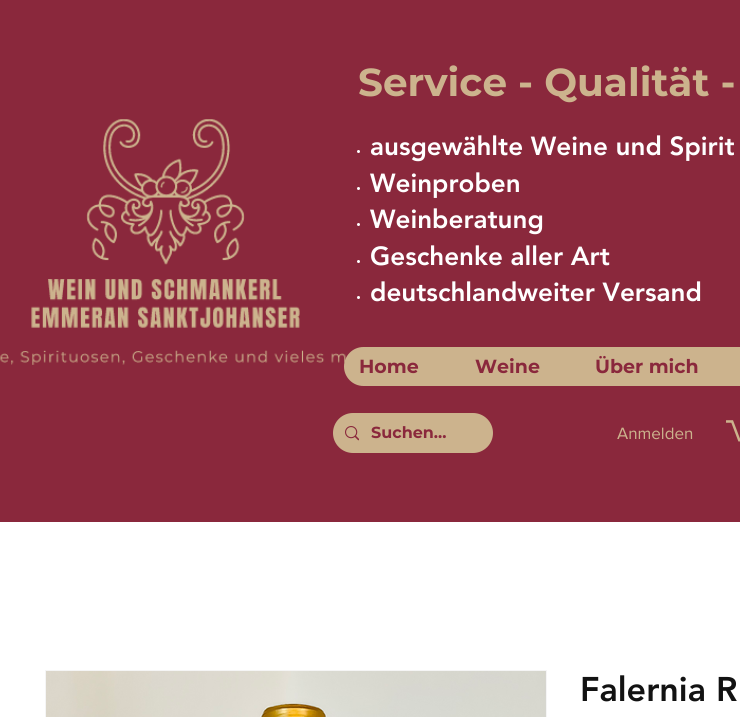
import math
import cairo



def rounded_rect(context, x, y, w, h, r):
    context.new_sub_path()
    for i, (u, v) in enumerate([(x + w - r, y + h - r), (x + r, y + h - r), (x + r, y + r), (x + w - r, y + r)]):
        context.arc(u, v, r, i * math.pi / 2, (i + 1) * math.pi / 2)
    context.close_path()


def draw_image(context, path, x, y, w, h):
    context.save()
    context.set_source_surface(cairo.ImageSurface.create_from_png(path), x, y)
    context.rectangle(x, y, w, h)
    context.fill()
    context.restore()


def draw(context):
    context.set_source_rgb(1, 1, 1)
    context.paint()
    context.set_source_rgb(138 / 255, 40 / 255, 60 / 255)
    context.rectangle(0, 0, 740, 522)
    context.fill()
    draw_image(context, "images/1.png", 0, 119, 346, 246)
    context.set_source_rgb(1, 1, 1)
    context.arc(358.5, 151.5, 1.5, 0, 2 * math.pi)
    context.fill()
    context.arc(358.5, 188.5, 1.5, 0, 2 * math.pi)
    context.fill()
    context.arc(358.5, 224.5, 1.5, 0, 2 * math.pi)
    context.fill()
    context.arc(358.5, 261.5, 1.5, 0, 2 * math.pi)
    context.fill()
    context.arc(358.5, 297.5, 1.5, 0, 2 * math.pi)
    context.fill()
    context.set_source_rgb(204 / 255, 179 / 255, 141 / 255)
    rounded_rect(context, 344, 347, 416, 39, 19.5)
    context.fill()
    rounded_rect(context, 333, 413, 160, 40, 20)
    context.fill()
    draw_image(context, "images/2.png", 345, 426, 14, 15)
    draw_image(context, "images/3.png", 726, 420, 14, 22)
    context.rectangle(45.5, 670.5, 501, 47)
    context.set_source_rgb(245 / 255, 245 / 255, 245 / 255)
    context.set_line_width(1)
    context.stroke()
    draw_image(context, "images/4.png", 46, 671, 500, 46)
    context.select_font_face("Montserrat", cairo.FontSlant.NORMAL, cairo.FontWeight.BOLD)
    context.set_font_size(39)
    context.set_source_rgb(204 / 255, 179 / 255, 141 / 255)
    context.move_to(358, 96)
    context.show_text("Service - Qualität -")
    context.select_font_face("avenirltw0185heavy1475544 Black")
    context.set_font_size(26)
    context.set_source_rgb(1, 1, 1)
    context.move_to(370, 155)
    context.show_text("ausgewählte Weine und Spirit")
    context.move_to(370, 192)
    context.show_text("Weinproben")
    context.move_to(370, 228)
    context.show_text("Weinberatung")
    context.move_to(370, 265)
    context.show_text("Geschenke aller Art")
    context.move_to(370, 301)
    context.show_text("deutschlandweiter Versand")
    context.select_font_face("Montserrat", cairo.FontSlant.NORMAL, cairo.FontWeight.BOLD)
    context.set_font_size(19)
    context.set_source_rgb(138 / 255, 40 / 255, 60 / 255)
    context.move_to(359, 373)
    context.show_text("Home")
    context.move_to(475, 373)
    context.show_text("Weine")
    context.move_to(595, 373)
    context.show_text("Über mich")
    context.set_font_size(16)
    context.move_to(371, 438)
    context.show_text("Suchen...")
    context.select_font_face("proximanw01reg")
    context.set_font_size(17)
    context.set_source_rgb(204 / 255, 179 / 255, 141 / 255)
    context.move_to(617, 439)
    context.show_text("Anmelden")
    context.select_font_face("avenirltw0185heavy1475544 Black")
    context.set_font_size(34)
    context.set_source_rgb(18 / 255, 18 / 255, 18 / 255)
    context.move_to(580, 701)
    context.show_text("Falernia R")


surface = cairo.ImageSurface(cairo.Format.RGB24, 740, 717)
context = cairo.Context(surface)
options = cairo.FontOptions()
options.set_hint_metrics(cairo.HintMetrics.OFF)
options.set_hint_style(cairo.HintStyle.NONE)
context.set_font_options(options)
context.set_miter_limit(4)
draw(context)
surface.write_to_png("out.png")
